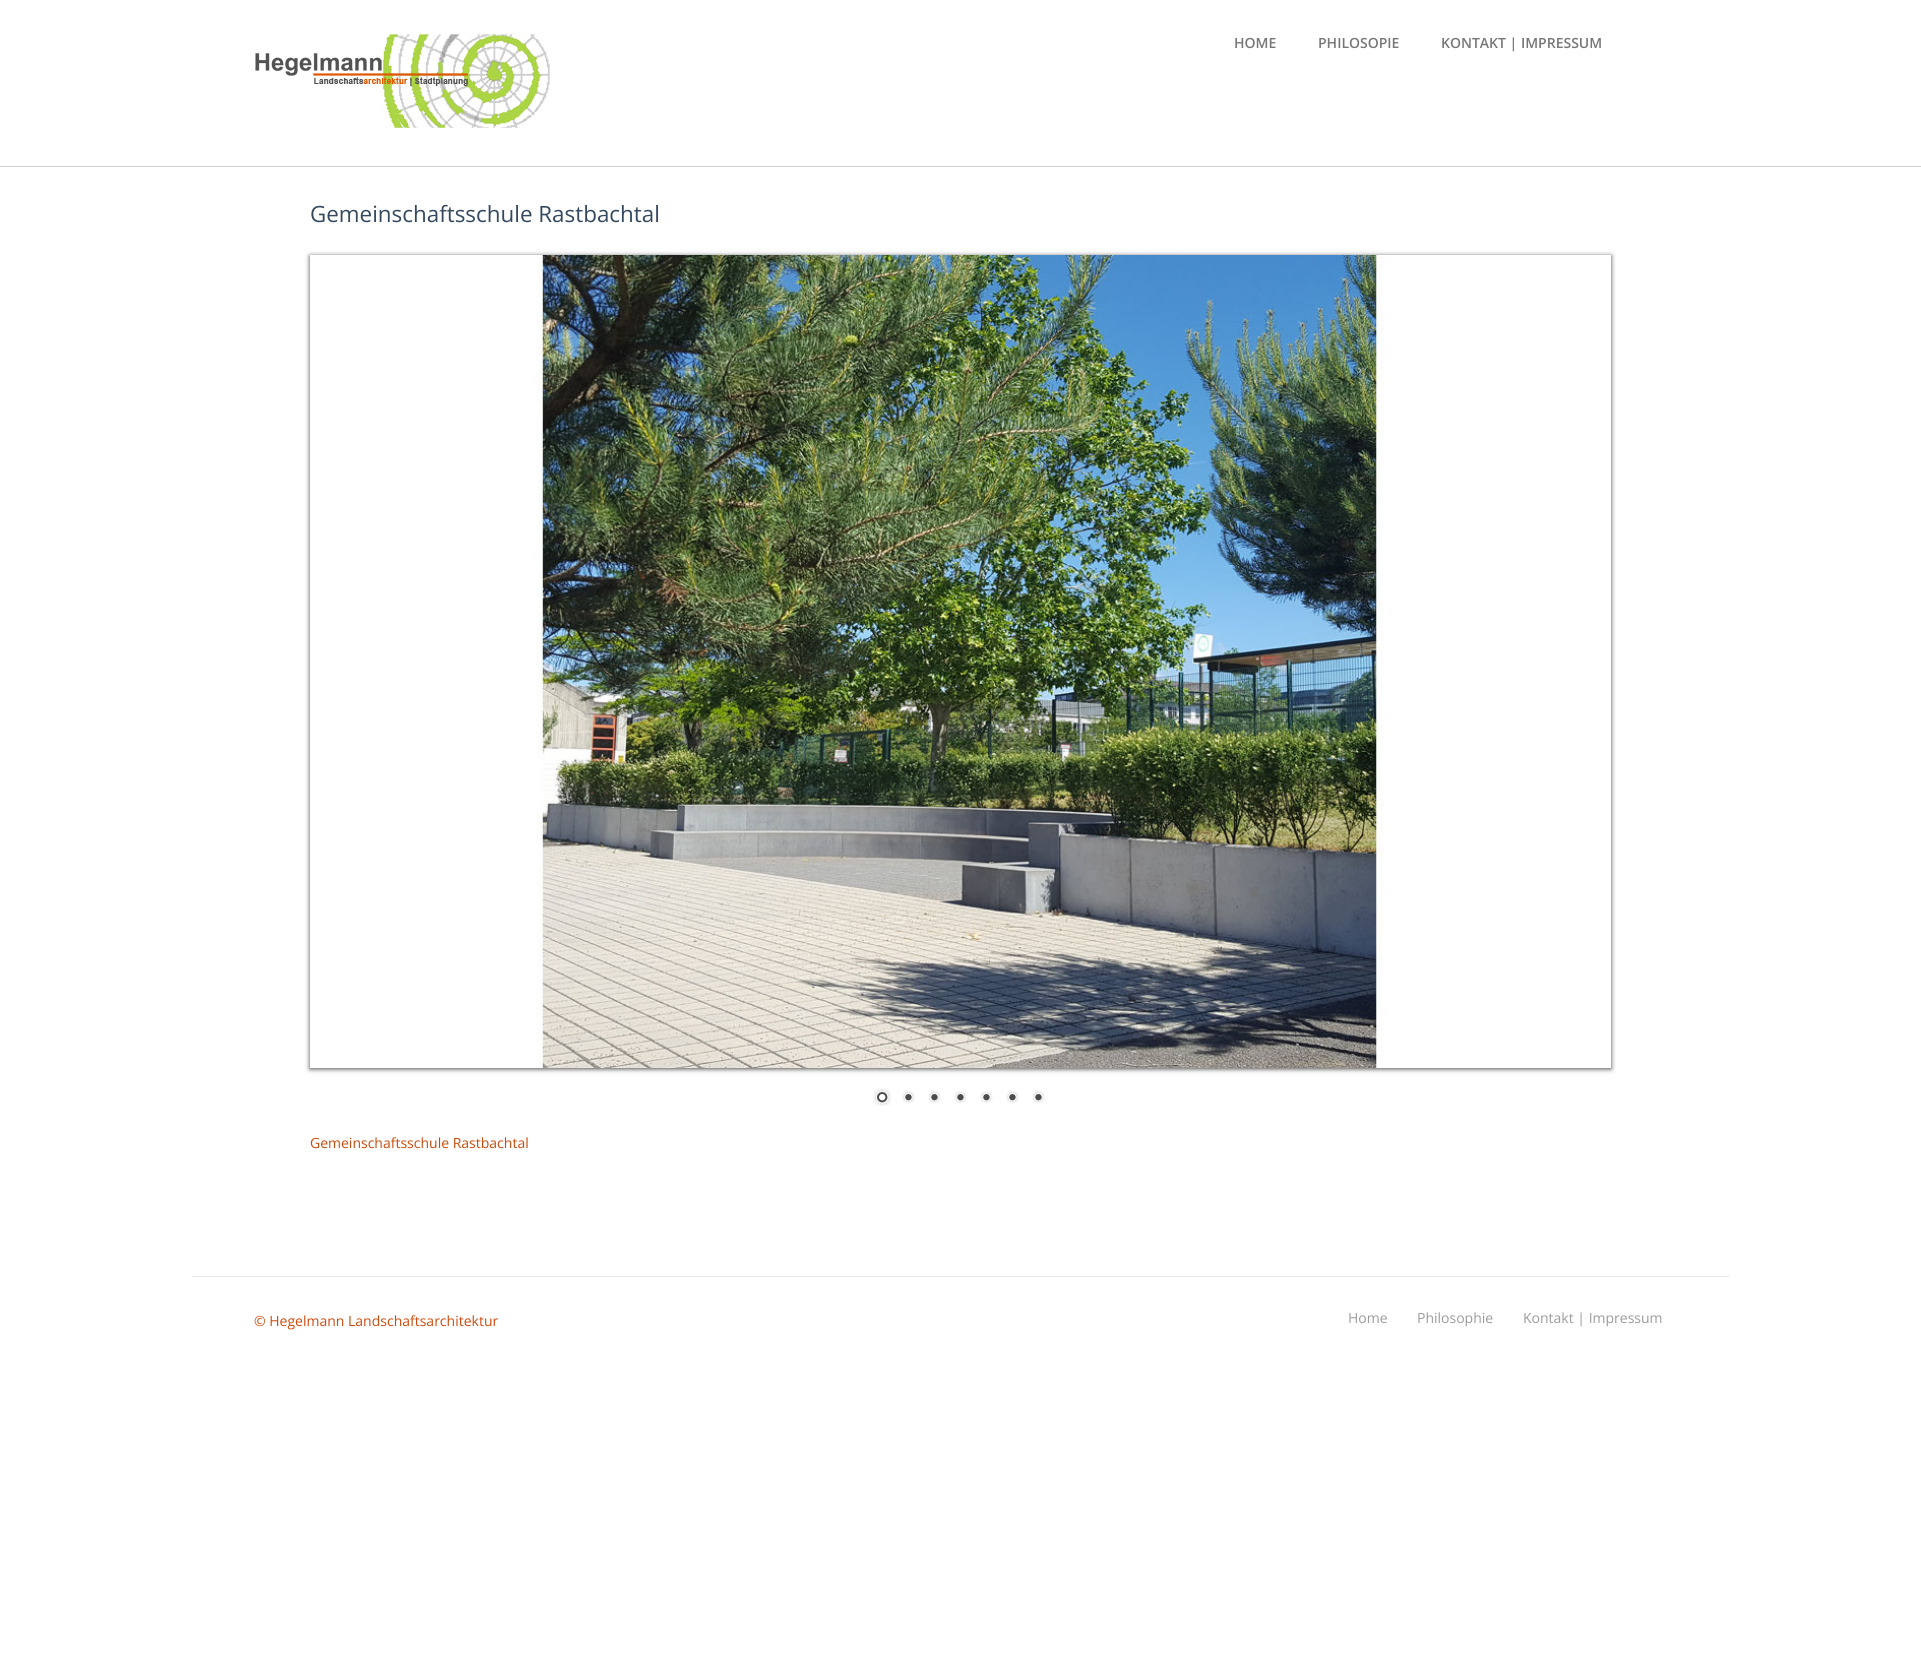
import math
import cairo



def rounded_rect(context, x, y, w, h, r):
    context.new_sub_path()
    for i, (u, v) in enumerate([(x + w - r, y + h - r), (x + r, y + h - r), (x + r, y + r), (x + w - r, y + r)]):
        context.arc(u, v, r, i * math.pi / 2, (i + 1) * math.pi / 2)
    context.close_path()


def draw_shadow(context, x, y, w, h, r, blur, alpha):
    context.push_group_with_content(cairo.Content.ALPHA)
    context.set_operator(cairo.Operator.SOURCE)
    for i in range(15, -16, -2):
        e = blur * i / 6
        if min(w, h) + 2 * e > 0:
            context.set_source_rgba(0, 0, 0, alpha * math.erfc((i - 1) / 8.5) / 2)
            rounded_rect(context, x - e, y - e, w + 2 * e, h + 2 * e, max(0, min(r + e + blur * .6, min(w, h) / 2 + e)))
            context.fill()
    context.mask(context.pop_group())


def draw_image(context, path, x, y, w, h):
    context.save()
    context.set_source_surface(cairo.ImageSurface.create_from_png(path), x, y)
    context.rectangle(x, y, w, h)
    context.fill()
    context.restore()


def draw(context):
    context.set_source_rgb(1, 1, 1)
    context.paint()
    draw_image(context, "images/1.png", 255, 34, 295, 94)
    context.set_source_rgb(204 / 255, 204 / 255, 204 / 255)
    context.rectangle(0, 166, 1921, 1)
    context.fill()
    context.save()
    context.set_fill_rule(cairo.FillRule.EVEN_ODD)
    context.new_path()
    context.move_to(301, 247)
    context.line_to(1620, 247)
    context.line_to(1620, 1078)
    context.line_to(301, 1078)
    context.close_path()
    context.move_to(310, 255)
    context.line_to(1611, 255)
    context.line_to(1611, 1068)
    context.line_to(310, 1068)
    context.close_path()
    context.clip()
    context.set_source_rgb(74 / 255, 74 / 255, 74 / 255)
    draw_shadow(context, 310, 256, 1301, 813, 0, 2.5, 1)
    context.restore()
    draw_image(context, "images/2.png", 537, 255, 847, 813)
    draw_image(context, "images/3.png", 873, 1088, 18, 18)
    draw_image(context, "images/4.png", 902, 1091, 13, 12)
    draw_image(context, "images/4.png", 928, 1091, 13, 12)
    draw_image(context, "images/4.png", 954, 1091, 13, 12)
    draw_image(context, "images/4.png", 980, 1091, 13, 12)
    draw_image(context, "images/4.png", 1006, 1091, 13, 12)
    draw_image(context, "images/4.png", 1032, 1091, 13, 12)
    context.set_source_rgb(231 / 255, 231 / 255, 231 / 255)
    context.rectangle(192, 1276, 1537, 1)
    context.fill()
    context.select_font_face("Open Sans SemiBold")
    context.set_font_size(14)
    context.set_source_rgb(119 / 255, 119 / 255, 119 / 255)
    context.move_to(1234, 48)
    context.show_text("HOME")
    context.move_to(1318, 48)
    context.show_text("PHILOSOPIE")
    context.move_to(1441, 48)
    context.show_text("KONTAKT | IMPRESSUM")
    context.select_font_face("Open Sans")
    context.set_font_size(22.4)
    context.set_source_rgb(52 / 255, 73 / 255, 94 / 255)
    context.move_to(310, 222)
    context.show_text("Gemeinschaftsschule Rastbachtal")
    context.set_font_size(14)
    context.set_source_rgb(204 / 255, 75 / 255, 12 / 255)
    context.move_to(310, 1148)
    context.show_text("Gemeinschaftsschule Rastbachtal")
    context.move_to(254, 1326)
    context.show_text("© Hegelmann Landschaftsarchitektur")
    context.set_source_rgb(156 / 255, 156 / 255, 156 / 255)
    context.move_to(1348, 1323)
    context.show_text("Home")
    context.move_to(1417, 1323)
    context.show_text("Philosophie")
    context.move_to(1523, 1323)
    context.show_text("Kontakt | Impressum")


surface = cairo.ImageSurface(cairo.Format.RGB24, 1921, 1661)
context = cairo.Context(surface)
options = cairo.FontOptions()
options.set_hint_metrics(cairo.HintMetrics.OFF)
options.set_hint_style(cairo.HintStyle.NONE)
context.set_font_options(options)
context.set_miter_limit(4)
draw(context)
surface.write_to_png("out.png")
